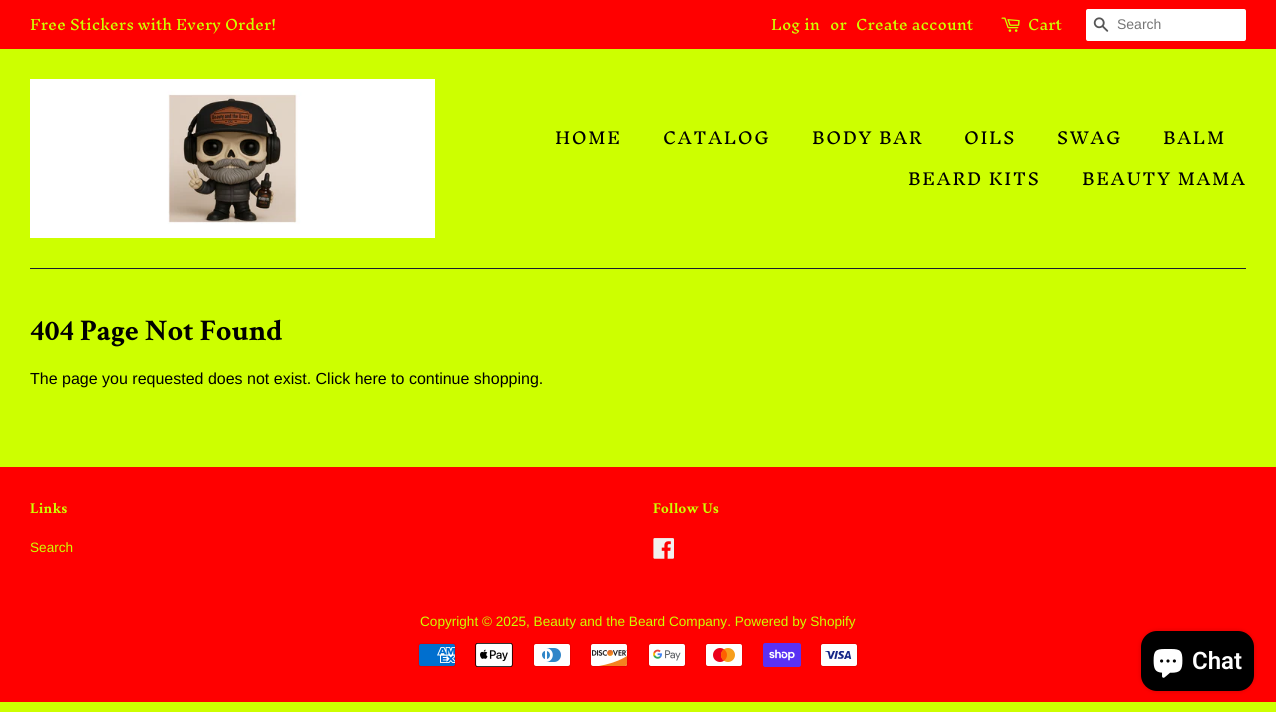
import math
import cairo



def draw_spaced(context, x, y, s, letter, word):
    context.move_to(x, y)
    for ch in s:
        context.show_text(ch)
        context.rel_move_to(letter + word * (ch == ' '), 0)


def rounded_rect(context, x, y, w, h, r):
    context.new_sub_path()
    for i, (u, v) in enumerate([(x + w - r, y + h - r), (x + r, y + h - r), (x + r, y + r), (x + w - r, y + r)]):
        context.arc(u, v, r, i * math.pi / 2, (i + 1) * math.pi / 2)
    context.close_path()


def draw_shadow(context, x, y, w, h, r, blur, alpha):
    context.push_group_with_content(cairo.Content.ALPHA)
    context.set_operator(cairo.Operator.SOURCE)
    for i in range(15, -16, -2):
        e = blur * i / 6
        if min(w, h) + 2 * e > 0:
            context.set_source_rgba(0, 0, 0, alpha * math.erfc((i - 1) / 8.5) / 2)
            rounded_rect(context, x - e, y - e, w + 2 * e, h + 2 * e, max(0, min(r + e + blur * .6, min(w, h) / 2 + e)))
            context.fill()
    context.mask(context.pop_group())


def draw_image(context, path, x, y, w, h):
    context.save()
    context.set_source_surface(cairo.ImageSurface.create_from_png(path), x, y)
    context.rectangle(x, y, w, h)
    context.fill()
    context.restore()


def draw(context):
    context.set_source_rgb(205 / 255, 1, 0)
    context.paint()
    context.set_source_rgb(1, 0, 0)
    context.rectangle(0, 0, 1276, 49)
    context.fill()
    draw_image(context, "images/1.png", 1001, 17, 19, 15)
    context.set_source_rgb(1, 1, 1)
    rounded_rect(context, 1086, 9, 160, 32, 2)
    context.fill()
    draw_image(context, "images/2.png", 1093, 17, 16, 15)
    context.set_source_rgb(27 / 255, 30 / 255, 47 / 255)
    context.rectangle(30, 268, 1216, 1)
    context.fill()
    draw_image(context, "images/3.png", 30, 79, 405, 159)
    context.set_source_rgb(1, 0, 0)
    context.rectangle(0, 467, 1276, 235)
    context.fill()
    draw_image(context, "images/4.png", 653, 538, 21, 21)
    draw_image(context, "images/5.png", 418, 643, 38, 24)
    draw_image(context, "images/6.png", 475, 643, 38, 24)
    draw_image(context, "images/7.png", 533, 643, 38, 24)
    draw_image(context, "images/8.png", 590, 643, 38, 24)
    draw_image(context, "images/9.png", 648, 643, 38, 24)
    draw_image(context, "images/10.png", 705, 643, 38, 24)
    draw_image(context, "images/11.png", 763, 643, 38, 24)
    draw_image(context, "images/12.png", 820, 643, 38, 24)
    context.set_source_rgb(0, 0, 0)
    draw_shadow(context, 1141, 631, 113, 60, 16, 2.5, 0.15)
    context.set_source_rgb(0, 0, 0)
    rounded_rect(context, 1141, 631, 113, 60, 16)
    context.fill()
    draw_image(context, "images/13.png", 1153, 649, 30, 29)
    context.select_font_face("Inknut Antiqua")
    context.set_font_size(14)
    context.set_source_rgb(205 / 255, 1, 0)
    context.move_to(30, 30)
    context.show_text("Free Stickers with Every Order!")
    context.move_to(771, 30)
    context.show_text("Log in")
    context.move_to(830, 30)
    context.show_text("or")
    context.move_to(856, 30)
    context.show_text("Create account")
    context.move_to(1028, 30)
    context.show_text("Cart")
    context.select_font_face("Liberation Sans")
    context.set_source_rgb(117 / 255, 117 / 255, 117 / 255)
    context.move_to(1117, 29)
    context.show_text("Search")
    context.select_font_face("Inknut Antiqua")
    context.set_font_size(16)
    context.set_source_rgb(0, 0, 0)
    draw_spaced(context, 555, 144, "HOME", 1.6, 0)
    draw_spaced(context, 663, 144, "CATALOG", 1.6, 0)
    draw_spaced(context, 812, 144, "BODY BAR", 1.6, 0)
    draw_spaced(context, 964, 144, "OILS", 1.6, 0)
    draw_spaced(context, 1057, 144, "SWAG", 1.6, 0)
    draw_spaced(context, 1163, 144, "BALM", 1.6, 0)
    draw_spaced(context, 908, 185, "BEARD KITS", 1.6, 0)
    draw_spaced(context, 1082, 185, "BEAUTY MAMA", 1.6, 0)
    context.select_font_face("Crimson Text", cairo.FontSlant.NORMAL, cairo.FontWeight.BOLD)
    context.set_font_size(30)
    context.move_to(30, 340)
    context.show_text("404 Page Not Found")
    context.select_font_face("Liberation Sans")
    context.set_font_size(16)
    context.move_to(30, 384)
    context.show_text("The page you requested does not exist. Click here to continue shopping.")
    context.select_font_face("Crimson Text", cairo.FontSlant.NORMAL, cairo.FontWeight.BOLD)
    context.set_font_size(15)
    context.set_source_rgb(205 / 255, 1, 0)
    context.move_to(30, 513)
    context.show_text("Links")
    context.select_font_face("Liberation Sans")
    context.set_font_size(13.6)
    context.move_to(30, 552)
    context.show_text("Search")
    context.select_font_face("Crimson Text", cairo.FontSlant.NORMAL, cairo.FontWeight.BOLD)
    context.set_font_size(15)
    context.move_to(653, 513)
    context.show_text("Follow Us")
    context.select_font_face("Liberation Sans")
    context.set_font_size(13.6)
    context.move_to(420, 626)
    context.show_text("Copyright © 2025, Beauty and the Beard Company. Powered by Shopify")
    context.select_font_face("Roboto SemiBold")
    context.set_font_size(24)
    context.set_source_rgb(1, 1, 1)
    context.move_to(1192, 669)
    context.show_text("Chat")


surface = cairo.ImageSurface(cairo.Format.RGB24, 1276, 712)
context = cairo.Context(surface)
options = cairo.FontOptions()
options.set_hint_metrics(cairo.HintMetrics.OFF)
options.set_hint_style(cairo.HintStyle.NONE)
context.set_font_options(options)
context.set_miter_limit(4)
draw(context)
surface.write_to_png("out.png")
